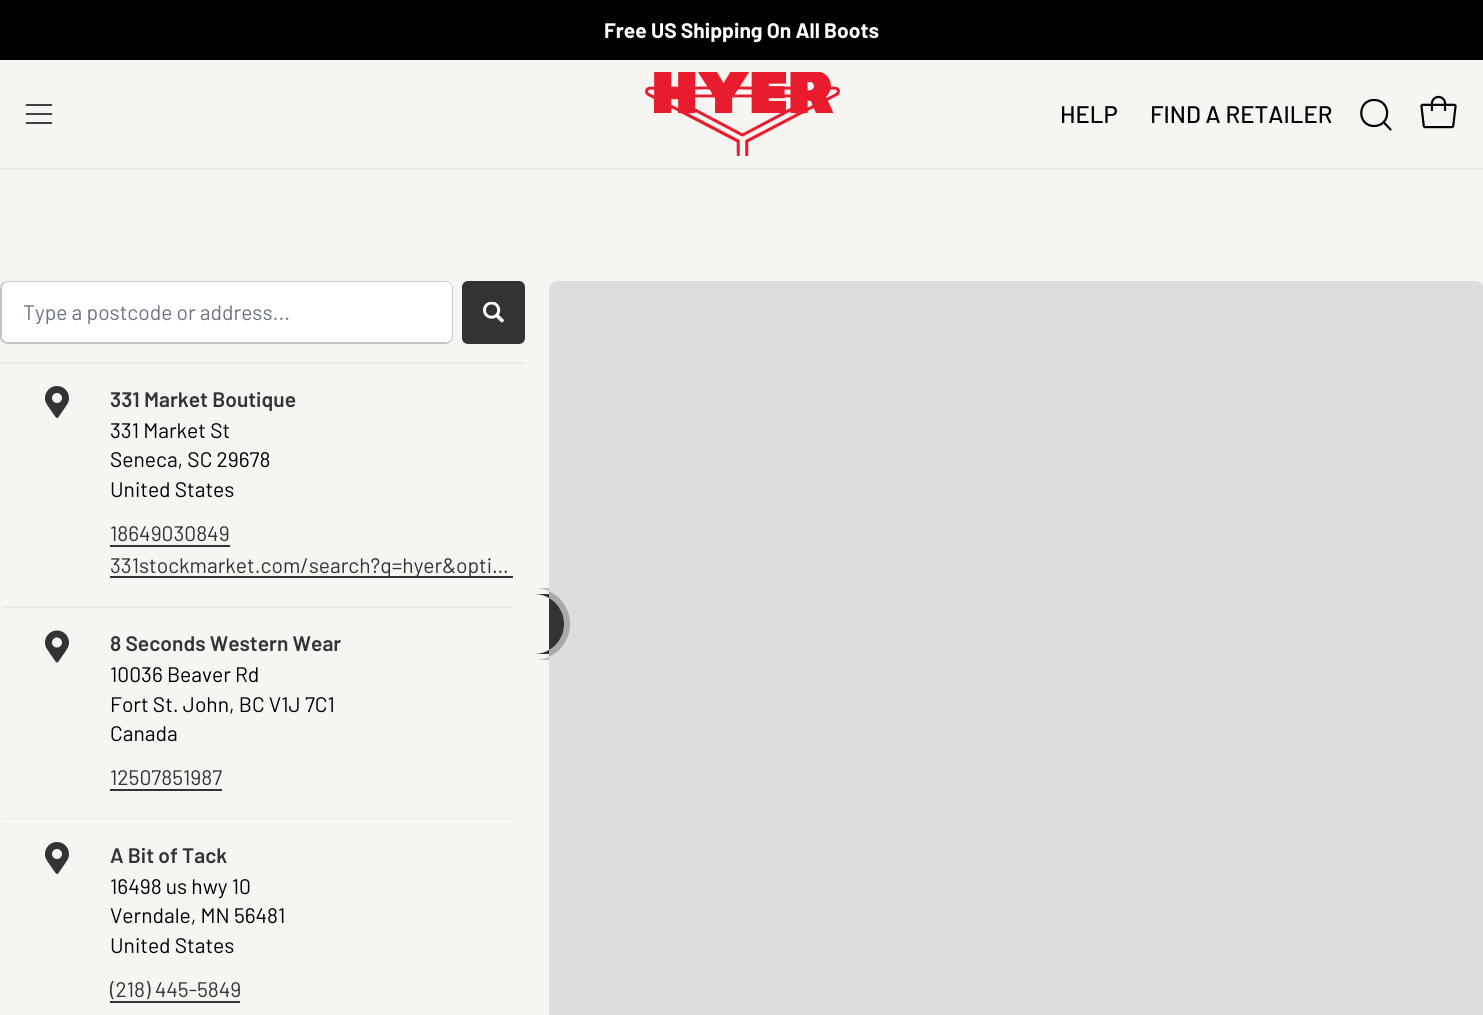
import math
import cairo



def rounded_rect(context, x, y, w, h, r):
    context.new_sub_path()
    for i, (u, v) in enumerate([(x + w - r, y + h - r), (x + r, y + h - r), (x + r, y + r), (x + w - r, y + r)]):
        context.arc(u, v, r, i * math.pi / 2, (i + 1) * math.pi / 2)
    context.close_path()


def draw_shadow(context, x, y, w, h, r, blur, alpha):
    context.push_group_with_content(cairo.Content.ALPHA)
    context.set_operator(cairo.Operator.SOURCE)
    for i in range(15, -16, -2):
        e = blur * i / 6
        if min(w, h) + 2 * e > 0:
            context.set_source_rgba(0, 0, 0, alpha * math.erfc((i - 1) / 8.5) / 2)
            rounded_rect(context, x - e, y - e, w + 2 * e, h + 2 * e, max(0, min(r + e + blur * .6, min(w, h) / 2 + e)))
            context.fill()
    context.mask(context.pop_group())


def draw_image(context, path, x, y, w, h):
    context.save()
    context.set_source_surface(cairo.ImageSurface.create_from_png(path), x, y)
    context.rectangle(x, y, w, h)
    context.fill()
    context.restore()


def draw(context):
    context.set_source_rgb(247 / 255, 245 / 255, 242 / 255)
    context.paint()
    context.set_source_rgb(0, 0, 0)
    context.rectangle(0, 0, 1483, 60)
    context.fill()
    context.save()
    context.set_fill_rule(cairo.FillRule.EVEN_ODD)
    context.new_path()
    context.move_to(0, 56)
    context.line_to(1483, 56)
    context.line_to(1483, 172)
    context.line_to(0, 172)
    context.close_path()
    context.move_to(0, 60)
    context.line_to(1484, 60)
    context.line_to(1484, 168)
    context.line_to(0, 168)
    context.close_path()
    context.clip()
    context.set_source_rgb(0, 0, 0)
    draw_shadow(context, 0, 60, 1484, 108, 0, 1, 0.2)
    context.restore()
    context.new_path()
    context.move_to(26.5, 114)
    context.line_to(51.5, 114)
    context.move_to(26.5, 105)
    context.line_to(51.5, 105)
    context.move_to(26.5, 123)
    context.line_to(51.5, 123)
    context.set_line_width(1.5)
    context.set_line_cap(cairo.LineCap.ROUND)
    context.set_line_join(cairo.LineJoin.ROUND)
    context.stroke()
    draw_image(context, "images/1.png", 645, 72, 195, 84)
    context.new_path()
    context.move_to(1374, 126)
    context.curve_to(1391.5, 126, 1391.5, 100, 1374, 100)
    context.curve_to(1357, 100, 1357, 126, 1374, 126)
    context.close_path()
    context.move_to(1383.5, 122)
    context.line_to(1390.5, 129.5)
    context.set_line_width(2.2)
    context.stroke()
    draw_image(context, "images/2.png", 1420, 95, 37, 34)
    rounded_rect(context, 1, 282, 451, 61, 7)
    context.set_source_rgb(198 / 255, 196 / 255, 194 / 255)
    context.set_line_width(2)
    context.set_line_cap(cairo.LineCap.BUTT)
    context.set_line_join(cairo.LineJoin.MITER)
    context.stroke()
    context.set_source_rgb(1, 1, 1)
    rounded_rect(context, 2, 282, 450, 60, 6)
    context.fill()
    context.set_source_rgb(51 / 255, 51 / 255, 51 / 255)
    rounded_rect(context, 462, 281, 63, 63, 6)
    context.fill()
    draw_image(context, "images/3.png", 483, 302, 21, 21)
    context.set_source_rgb(221 / 255, 221 / 255, 221 / 255)
    rounded_rect(context, 549, 281, 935, 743, 9)
    context.fill()
    context.set_source_rgba(51 / 255, 51 / 255, 51 / 255, 0.3)
    context.new_path()
    context.move_to(549, 588)
    context.line_to(534, 588)
    context.curve_to(554, 588, 570, 604, 570, 624)
    context.curve_to(570, 644, 554, 660, 534, 660)
    context.line_to(549, 660)
    context.close_path()
    context.fill()
    context.set_source_rgb(51 / 255, 51 / 255, 51 / 255)
    context.new_path()
    context.move_to(549, 594)
    context.line_to(534, 594)
    context.curve_to(550.5, 594, 564, 607.5, 564, 624)
    context.curve_to(564, 640.5, 550.5, 654, 534, 654)
    context.line_to(549, 654)
    context.close_path()
    context.fill()
    context.set_source_rgb(235 / 255, 233 / 255, 230 / 255)
    context.rectangle(0, 362, 525, 2)
    context.fill()
    draw_image(context, "images/4.png", 45, 386, 24, 32)
    context.set_source_rgb(51 / 255, 51 / 255, 51 / 255)
    context.rectangle(110, 545, 120, 2)
    context.fill()
    context.rectangle(110, 576, 403, 2)
    context.fill()
    context.set_source_rgb(235 / 255, 233 / 255, 230 / 255)
    context.new_path()
    context.move_to(0, 606)
    context.line_to(513, 606)
    context.line_to(513, 608)
    context.line_to(4, 608)
    context.close_path()
    context.fill()
    draw_image(context, "images/5.png", 45, 630, 24, 33)
    context.set_source_rgb(51 / 255, 51 / 255, 51 / 255)
    context.rectangle(110, 789, 112, 2)
    context.fill()
    context.set_source_rgb(235 / 255, 233 / 255, 230 / 255)
    context.new_path()
    context.move_to(0, 818)
    context.line_to(513, 818)
    context.line_to(513, 819)
    context.line_to(4, 819)
    context.close_path()
    context.fill()
    draw_image(context, "images/4.png", 45, 842, 24, 32)
    context.set_source_rgb(51 / 255, 51 / 255, 51 / 255)
    context.rectangle(110, 1001, 130, 2)
    context.fill()
    context.select_font_face("Barlow", cairo.FontSlant.NORMAL, cairo.FontWeight.BOLD)
    context.set_font_size(21)
    context.set_source_rgb(1, 1, 1)
    context.move_to(604, 38)
    context.show_text("Free US Shipping On All Boots")
    context.select_font_face("Barlow Medium")
    context.set_font_size(24)
    context.set_source_rgb(0, 0, 0)
    context.move_to(1060, 123)
    context.show_text("HELP")
    context.move_to(1150, 123)
    context.show_text("FIND A RETAILER")
    context.save()
    context.rectangle(23, 299, 408, 25)
    context.clip()
    context.select_font_face("Barlow")
    context.set_font_size(21)
    context.set_source_rgb(107 / 255, 114 / 255, 128 / 255)
    context.move_to(23, 320)
    context.show_text("Type a postcode or address...")
    context.restore()
    context.select_font_face("Barlow SemiBold")
    context.set_font_size(21)
    context.set_source_rgb(51 / 255, 51 / 255, 51 / 255)
    context.move_to(110, 407)
    context.show_text("331 Market Boutique")
    context.select_font_face("Barlow")
    context.set_source_rgb(0, 0, 0)
    context.move_to(110, 438)
    context.show_text("331 Market St")
    context.move_to(110, 467)
    context.show_text("Seneca, SC 29678")
    context.move_to(110, 497)
    context.show_text("United States")
    context.set_source_rgb(51 / 255, 51 / 255, 51 / 255)
    context.move_to(110, 541)
    context.show_text("18649030849")
    context.move_to(110, 573)
    context.show_text("331stockmarket.com/search?q=hyer&opti…")
    context.select_font_face("Barlow SemiBold")
    context.move_to(110, 651)
    context.show_text("8 Seconds Western Wear")
    context.select_font_face("Barlow")
    context.set_source_rgb(0, 0, 0)
    context.move_to(110, 682)
    context.show_text("10036 Beaver Rd")
    context.move_to(110, 712)
    context.show_text("Fort St. John, BC V1J 7C1")
    context.move_to(110, 741)
    context.show_text("Canada")
    context.set_source_rgb(51 / 255, 51 / 255, 51 / 255)
    context.move_to(110, 785)
    context.show_text("12507851987")
    context.select_font_face("Barlow SemiBold")
    context.move_to(110, 863)
    context.show_text("A Bit of Tack")
    context.select_font_face("Barlow")
    context.set_source_rgb(0, 0, 0)
    context.move_to(110, 894)
    context.show_text("16498 us hwy 10")
    context.move_to(110, 923)
    context.show_text("Verndale, MN 56481")
    context.move_to(110, 953)
    context.show_text("United States")
    context.save()
    context.rectangle(110, 975, 130, 32)
    context.clip()
    context.set_source_rgb(51 / 255, 51 / 255, 51 / 255)
    context.move_to(110, 997)
    context.show_text("(218) 445-5849")
    context.restore()


surface = cairo.ImageSurface(cairo.Format.RGB24, 1483, 1015)
context = cairo.Context(surface)
options = cairo.FontOptions()
options.set_hint_metrics(cairo.HintMetrics.OFF)
options.set_hint_style(cairo.HintStyle.NONE)
context.set_font_options(options)
context.set_miter_limit(4)
draw(context)
surface.write_to_png("out.png")
